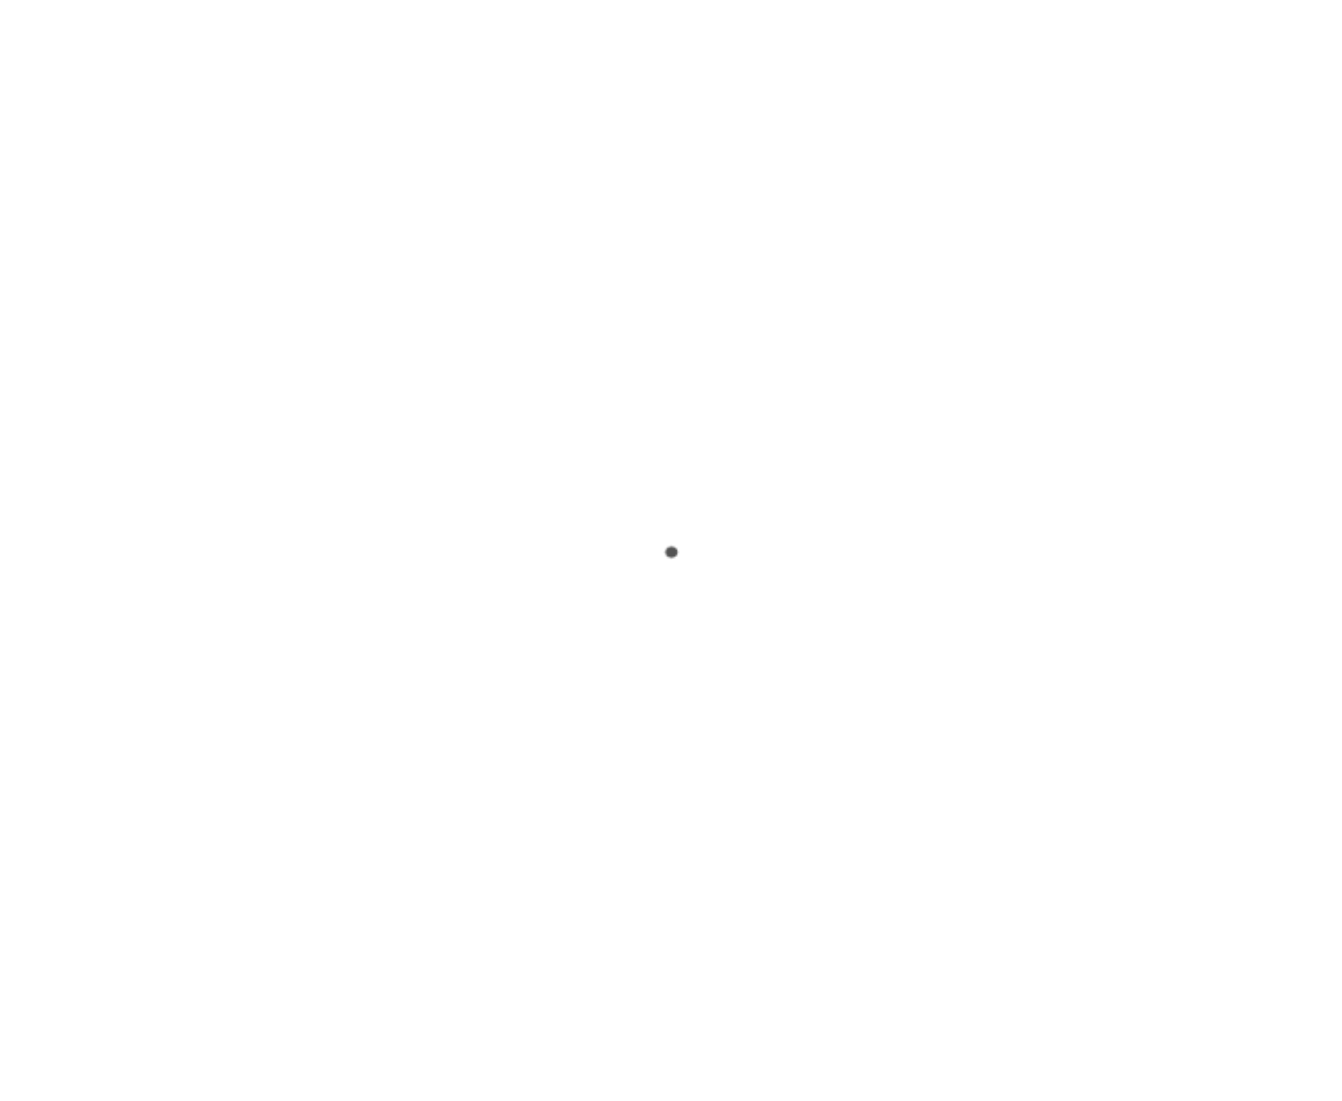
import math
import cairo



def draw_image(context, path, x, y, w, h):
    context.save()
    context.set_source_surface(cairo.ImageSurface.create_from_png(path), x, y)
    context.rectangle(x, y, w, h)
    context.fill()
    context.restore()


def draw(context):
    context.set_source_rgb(1, 1, 1)
    context.paint()
    draw_image(context, "images/1.png", 663, 544, 17, 16)


surface = cairo.ImageSurface(cairo.Format.RGB24, 1342, 1101)
context = cairo.Context(surface)
options = cairo.FontOptions()
options.set_hint_metrics(cairo.HintMetrics.OFF)
options.set_hint_style(cairo.HintStyle.NONE)
context.set_font_options(options)
context.set_miter_limit(4)
draw(context)
surface.write_to_png("out.png")
